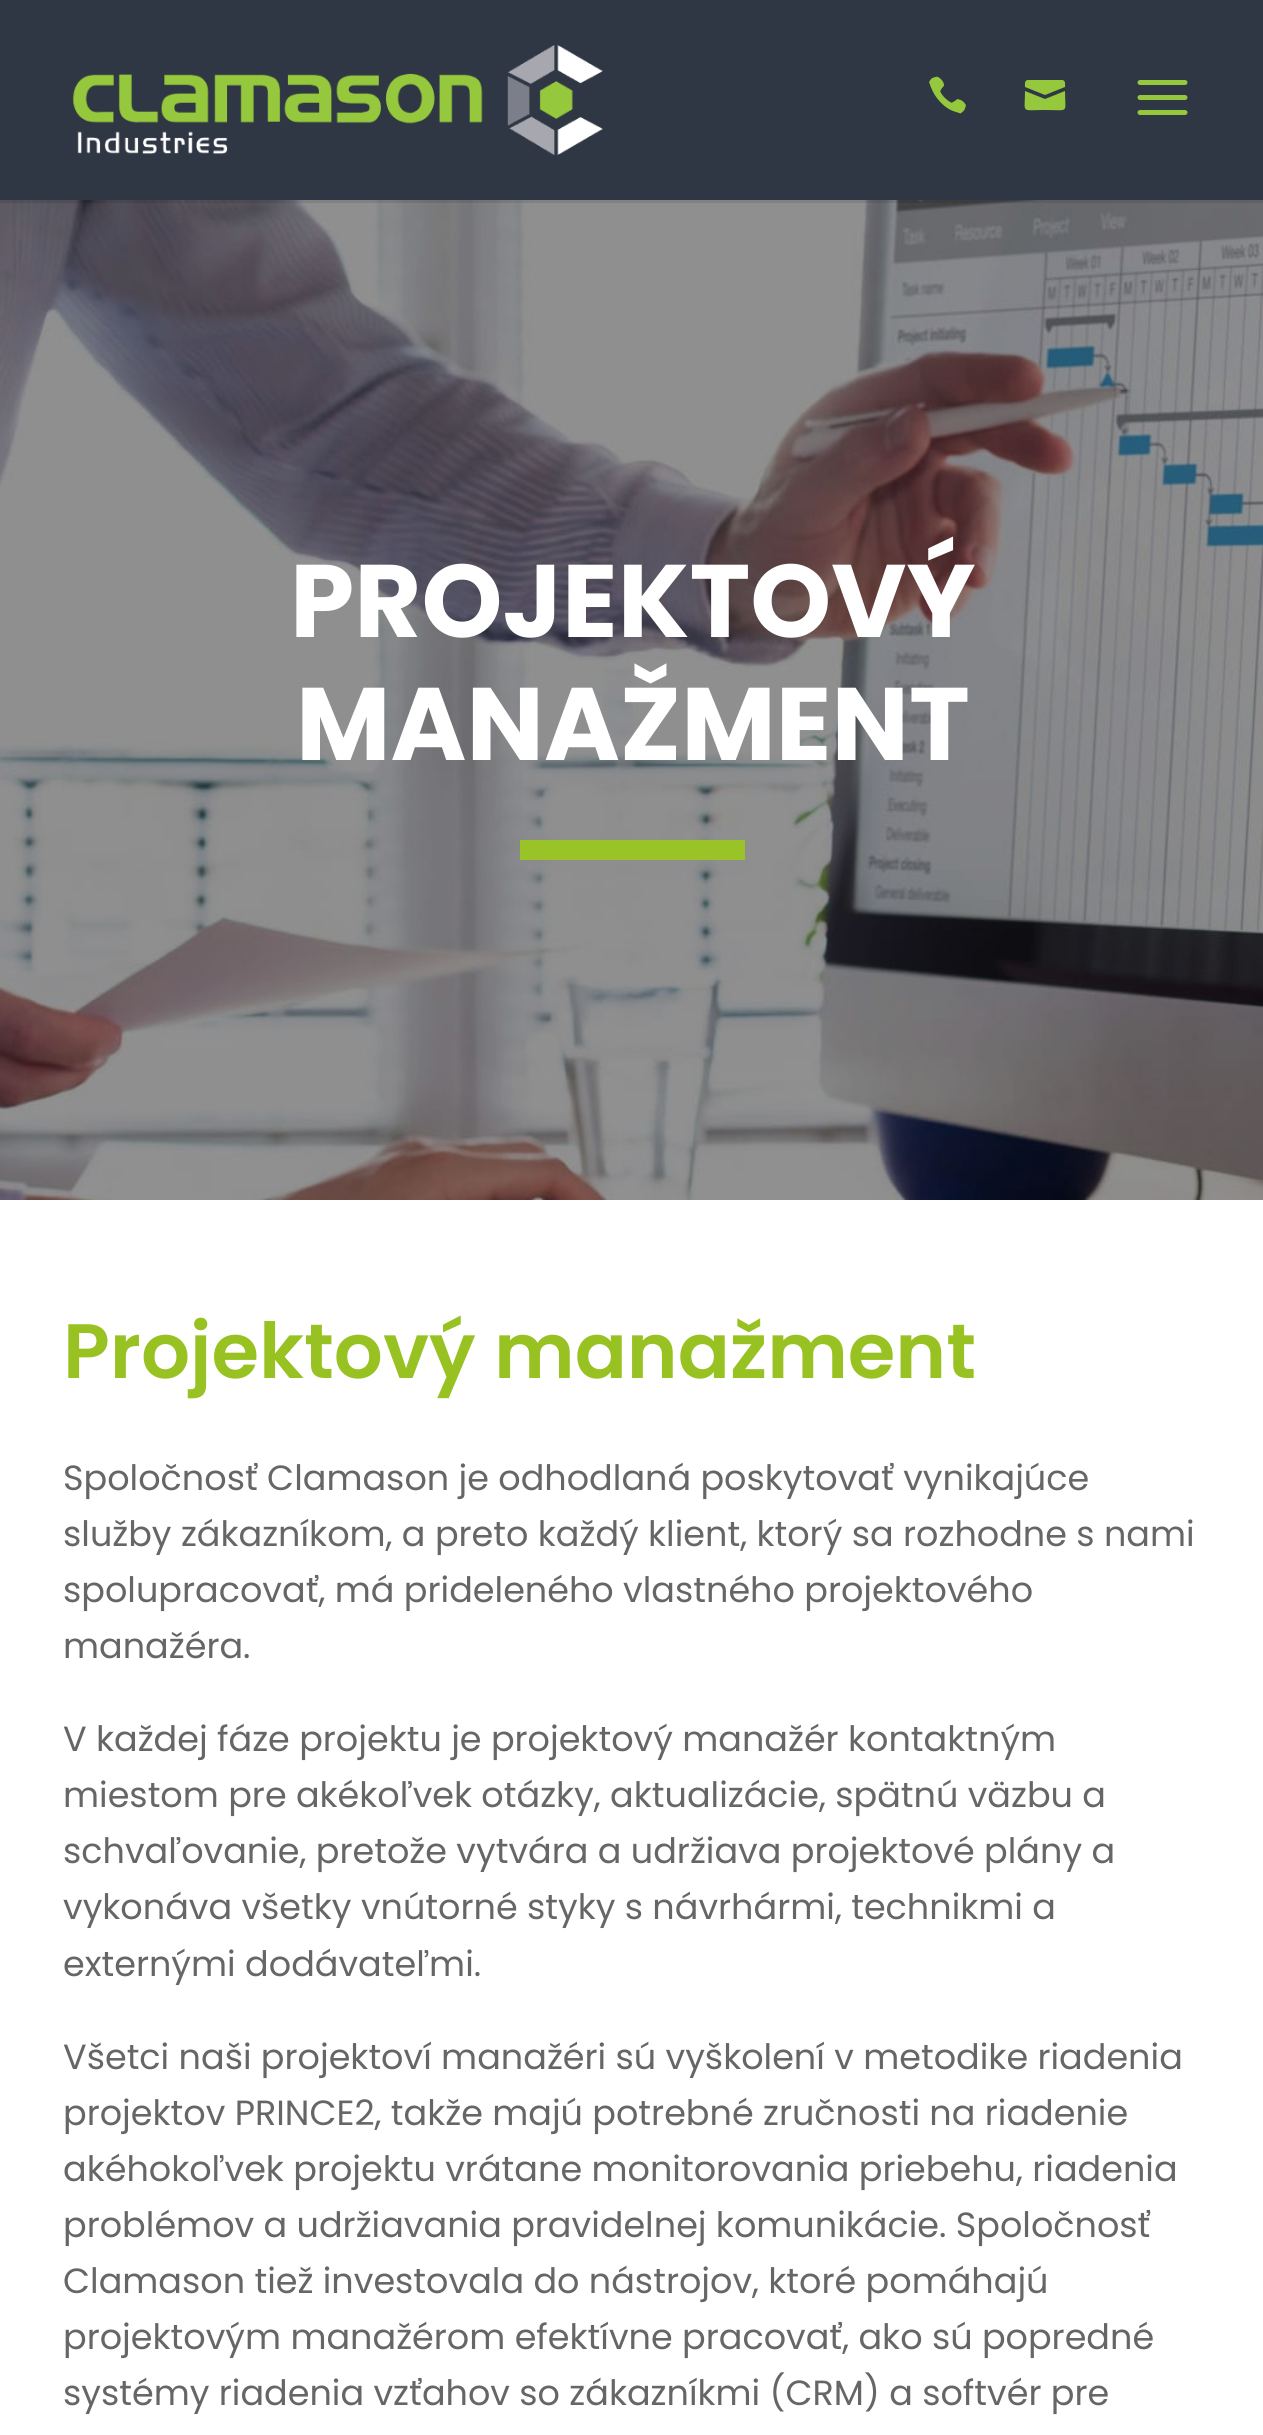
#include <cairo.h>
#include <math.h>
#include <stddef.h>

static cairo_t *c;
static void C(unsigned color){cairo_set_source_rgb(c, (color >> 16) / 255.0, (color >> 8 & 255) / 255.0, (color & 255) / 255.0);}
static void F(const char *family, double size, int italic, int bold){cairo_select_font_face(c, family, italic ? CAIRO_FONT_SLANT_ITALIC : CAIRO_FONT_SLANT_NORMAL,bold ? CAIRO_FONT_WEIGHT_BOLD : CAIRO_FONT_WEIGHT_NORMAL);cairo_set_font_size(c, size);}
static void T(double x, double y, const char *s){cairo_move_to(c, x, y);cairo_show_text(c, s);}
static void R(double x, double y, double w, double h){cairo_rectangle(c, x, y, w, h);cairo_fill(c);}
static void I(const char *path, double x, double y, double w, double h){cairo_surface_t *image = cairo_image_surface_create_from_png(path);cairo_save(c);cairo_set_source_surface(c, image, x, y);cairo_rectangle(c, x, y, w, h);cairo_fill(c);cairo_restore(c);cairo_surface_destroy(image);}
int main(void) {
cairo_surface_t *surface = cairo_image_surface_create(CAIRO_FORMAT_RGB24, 1263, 2435);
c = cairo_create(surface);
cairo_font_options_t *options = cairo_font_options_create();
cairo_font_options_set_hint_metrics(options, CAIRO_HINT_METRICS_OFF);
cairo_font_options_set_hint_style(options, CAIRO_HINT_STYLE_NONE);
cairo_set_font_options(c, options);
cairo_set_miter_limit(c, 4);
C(0xffffff);
cairo_paint(c);
I("4.png",0,200,1263,1000);
cairo_set_source_rgba(c,0,0,0,0.1);
R(0,200,1263,3);
C(0x2f3744);
R(0,0,1263,200);
I("1.png",72,45,531,110);
I("2.png",929,76,37,38);
C(0x95c83d);
cairo_new_path(c);
cairo_move_to(c,1062,80);
cairo_line_to(c,1028,80);
cairo_curve_to(c,1024,80,1025,85,1025,87);
cairo_line_to(c,1045,95);
cairo_line_to(c,1065,87);
cairo_curve_to(c,1065,85,1066,80,1062,80);
cairo_close_path(c);
cairo_move_to(c,1025,91);
cairo_curve_to(c,1025,114,1020,110,1045,110);
cairo_curve_to(c,1070,110,1065,114,1065,91);
cairo_line_to(c,1045,99);
cairo_close_path(c);
cairo_fill(c);
I("3.png",1137,80,51,35);
F("Poppins",103,0,1);
C(0xffffff);
T(290,637,"PROJEKTOVÝ");
T(296,760,"MANAŽMENT");
C(0x99c326);
R(520,840,225,20);
F("Poppins SemiBold",77,0,0);
C(0x97c221);
T(63,1378,"Projektový manažment");
F("Poppins",35,0,0);
C(0x666666);
T(63,1490,"Spoločnosť Clamason je odhodlaná poskytovať vynikajúce");
T(63,1546,"služby zákazníkom, a preto každý klient, ktorý sa rozhodne s nami");
T(63,1602,"spolupracovať, má prideleného vlastného projektového");
T(63,1658,"manažéra.");
T(63,1751,"V každej fáze projektu je projektový manažér kontaktným");
T(63,1807,"miestom pre akékoľvek otázky, aktualizácie, spätnú väzbu a");
T(63,1863,"schvaľovanie, pretože vytvára a udržiava projektové plány a");
T(63,1919,"vykonáva všetky vnútorné styky s návrhármi, technikmi a");
T(63,1976,"externými dodávateľmi.");
T(63,2069,"Všetci naši projektoví manažéri sú vyškolení v metodike riadenia");
T(63,2125,"projektov PRINCE2, takže majú potrebné zručnosti na riadenie");
T(63,2181,"akéhokoľvek projektu vrátane monitorovania priebehu, riadenia");
T(63,2237,"problémov a udržiavania pravidelnej komunikácie. Spoločnosť");
T(63,2293,"Clamason tiež investovala do nástrojov, ktoré pomáhajú");
T(63,2349,"projektovým manažérom efektívne pracovať, ako sú popredné");
T(63,2405,"systémy riadenia vzťahov so zákazníkmi (CRM) a softvér pre");
cairo_surface_write_to_png(surface, "o.png");
cairo_font_options_destroy(options);
cairo_destroy(c);
cairo_surface_destroy(surface);
return 0;
}
